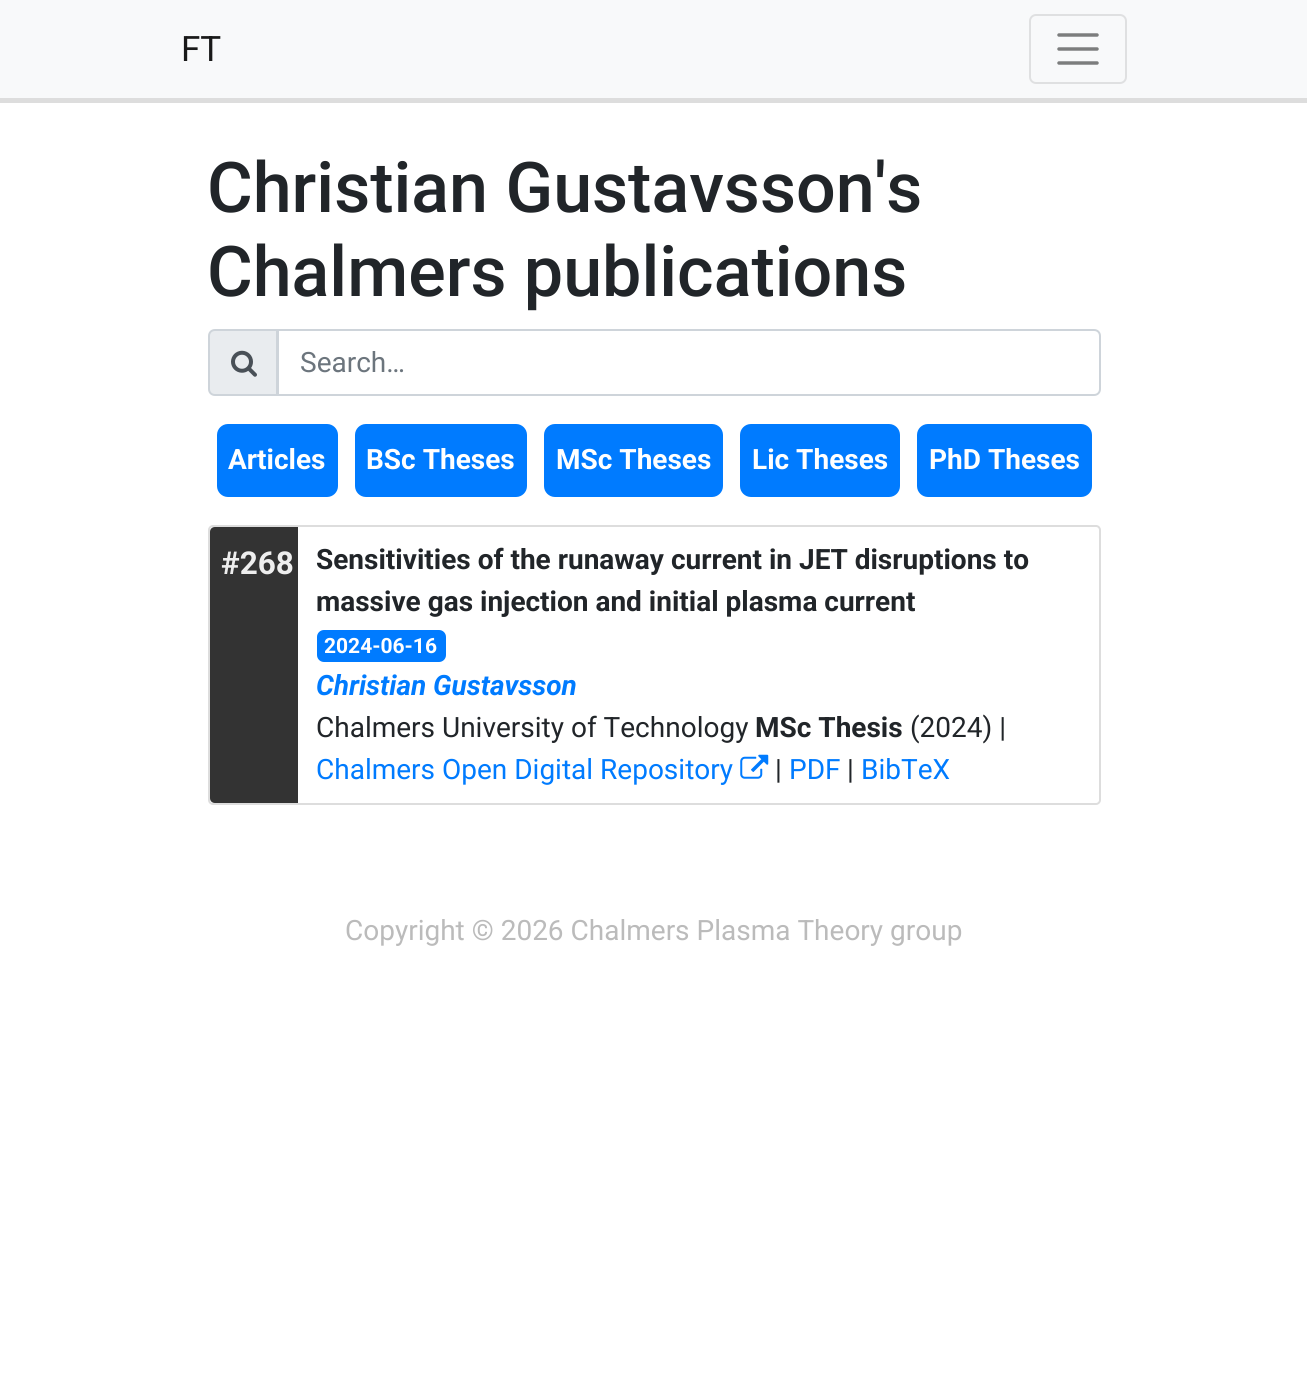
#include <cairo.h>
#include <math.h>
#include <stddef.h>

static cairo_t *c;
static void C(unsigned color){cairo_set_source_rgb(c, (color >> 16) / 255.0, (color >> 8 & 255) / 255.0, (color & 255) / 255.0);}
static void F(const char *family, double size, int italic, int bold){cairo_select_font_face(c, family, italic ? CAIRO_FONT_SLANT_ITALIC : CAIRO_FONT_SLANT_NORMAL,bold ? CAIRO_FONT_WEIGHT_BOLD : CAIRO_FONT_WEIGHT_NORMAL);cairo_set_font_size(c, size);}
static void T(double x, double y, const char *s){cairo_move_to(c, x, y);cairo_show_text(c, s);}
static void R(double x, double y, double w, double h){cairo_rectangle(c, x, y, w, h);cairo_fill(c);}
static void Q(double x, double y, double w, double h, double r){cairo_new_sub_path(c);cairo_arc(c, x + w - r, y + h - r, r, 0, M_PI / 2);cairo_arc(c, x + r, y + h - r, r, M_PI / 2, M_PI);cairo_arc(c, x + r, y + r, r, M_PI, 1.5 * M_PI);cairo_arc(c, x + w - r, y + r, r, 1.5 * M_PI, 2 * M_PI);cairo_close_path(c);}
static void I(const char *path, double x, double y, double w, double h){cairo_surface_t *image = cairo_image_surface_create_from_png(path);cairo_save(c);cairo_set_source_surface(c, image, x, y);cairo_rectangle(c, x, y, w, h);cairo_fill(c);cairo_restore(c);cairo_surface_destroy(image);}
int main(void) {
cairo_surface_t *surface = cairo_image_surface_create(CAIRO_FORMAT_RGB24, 1307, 1384);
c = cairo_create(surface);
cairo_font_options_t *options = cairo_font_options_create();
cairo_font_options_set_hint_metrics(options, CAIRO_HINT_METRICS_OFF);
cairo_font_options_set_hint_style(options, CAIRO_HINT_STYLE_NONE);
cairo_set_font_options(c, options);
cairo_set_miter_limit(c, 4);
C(0xffffff);
cairo_paint(c);
C(0xf8f9fa);
R(0,0,1307,98);
C(0xdddddd);
R(0,98,1307,5);
F("Roboto",35,0,0);
C(0x191919);
T(181,61,"FT");
Q(1030,15,96,68,6);
C(0xdfe0e1);
cairo_stroke(c);
cairo_new_path(c);
cairo_move_to(c,1059,35);
cairo_line_to(c,1097,35);
cairo_move_to(c,1059,49);
cairo_line_to(c,1097,49);
cairo_move_to(c,1059,63);
cairo_line_to(c,1097,63);
C(0x7c7d7d);
cairo_set_line_width(c,3.5);
cairo_set_line_cap(c,CAIRO_LINE_CAP_ROUND);
cairo_stroke(c);
F("Roboto Medium",70,0,0);
C(0x212529);
T(207,212,"Christian Gustavsson's");
T(207,296,"Chalmers publications");
C(0xe9ecef);
cairo_new_path(c);
cairo_move_to(c,215,330);
cairo_line_to(c,277,330);
cairo_line_to(c,277,395);
cairo_line_to(c,215,395);
cairo_curve_to(c,211.5,395,209,392.5,209,389);
cairo_line_to(c,209,336);
cairo_curve_to(c,209,332.5,211.5,330,215,330);
cairo_close_path(c);
cairo_fill_preserve(c);
C(0xced4da);
cairo_set_line_width(c,2);
cairo_set_line_cap(c,CAIRO_LINE_CAP_BUTT);
cairo_stroke(c);
I("1.png",231,350,26,27);
cairo_new_path(c);
cairo_move_to(c,278,330);
cairo_line_to(c,1094,330);
cairo_curve_to(c,1097.5,330,1100,332.5,1100,336);
cairo_line_to(c,1100,389);
cairo_curve_to(c,1100,392.5,1097.5,395,1094,395);
cairo_line_to(c,278,395);
cairo_close_path(c);
cairo_stroke(c);
F("Roboto",28,0,0);
C(0x6c757d);
T(300,372,"Search…");
C(0x007bff);
Q(218,425,119,71,10);
cairo_fill_preserve(c);
cairo_stroke(c);
F("Roboto",28,0,1);
C(0xffffff);
T(228,469,"Articles");
C(0x007bff);
Q(356,425,170,71,10);
cairo_fill_preserve(c);
cairo_stroke(c);
C(0xffffff);
T(366,469,"BSc Theses");
C(0x007bff);
Q(545,425,177,71,10);
cairo_fill_preserve(c);
cairo_stroke(c);
C(0xffffff);
T(556,469,"MSc Theses");
C(0x007bff);
Q(741,425,158,71,10);
cairo_fill_preserve(c);
cairo_stroke(c);
C(0xffffff);
T(752,469,"Lic Theses");
C(0x007bff);
Q(918,425,173,71,10);
cairo_fill_preserve(c);
cairo_stroke(c);
C(0xffffff);
T(929,469,"PhD Theses");
Q(209,526,891,278,4);
C(0xdddddd);
cairo_stroke(c);
C(0x333333);
cairo_new_path(c);
cairo_move_to(c,215,527);
cairo_line_to(c,298,527);
cairo_line_to(c,298,803);
cairo_line_to(c,215,803);
cairo_curve_to(c,212,803,210,801,210,798);
cairo_line_to(c,210,532);
cairo_curve_to(c,210,529,212,527,215,527);
cairo_close_path(c);
cairo_fill(c);
F("Roboto",31.5,0,1);
C(0xeeeeee);
T(221,574,"#268");
F("Roboto",28,0,1);
C(0x212529);
T(316,569,"Sensitivities of the runaway current in JET disruptions to");
T(316,611,"massive gas injection and initial plasma current");
C(0x007bff);
Q(317,630,129,32,7);
cairo_fill(c);
F("Roboto",21,0,1);
C(0xffffff);
T(324,653,"2024-06-16");
F("Roboto",28,1,1);
C(0x007bff);
T(316,695,"Christian Gustavsson");
F("Roboto",28,0,0);
C(0x212529);
T(316,737,"Chalmers University of Technology");
F("Roboto",28,0,1);
T(755,737,"MSc Thesis");
F("Roboto",28,0,0);
T(910,737,"(2024) |");
C(0x007bff);
T(316,779,"Chalmers Open Digital Repository");
I("2.png",740,754,29,25);
C(0x212529);
T(775,779,"|");
C(0x007bff);
T(789,779,"PDF");
C(0x212529);
T(847,779,"|");
C(0x007bff);
T(861,779,"BibTeX");
C(0xbbbbbb);
T(345,940,"Copyright © 2026 Chalmers Plasma Theory group");
cairo_surface_write_to_png(surface, "o.png");
cairo_font_options_destroy(options);
cairo_destroy(c);
cairo_surface_destroy(surface);
return 0;
}
